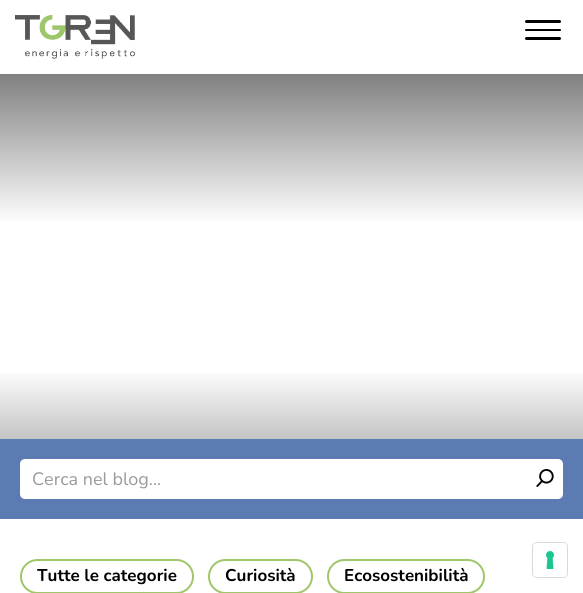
#include <cairo.h>
#include <math.h>
#include <stddef.h>

static cairo_t *c;
static void C(unsigned color){cairo_set_source_rgb(c, (color >> 16) / 255.0, (color >> 8 & 255) / 255.0, (color & 255) / 255.0);}
static void F(const char *family, double size, int italic, int bold){cairo_select_font_face(c, family, italic ? CAIRO_FONT_SLANT_ITALIC : CAIRO_FONT_SLANT_NORMAL,bold ? CAIRO_FONT_WEIGHT_BOLD : CAIRO_FONT_WEIGHT_NORMAL);cairo_set_font_size(c, size);}
static void T(double x, double y, const char *s){cairo_move_to(c, x, y);cairo_show_text(c, s);}
static void R(double x, double y, double w, double h){cairo_rectangle(c, x, y, w, h);cairo_fill(c);}
static void Q(double x, double y, double w, double h, double r){cairo_new_sub_path(c);cairo_arc(c, x + w - r, y + h - r, r, 0, M_PI / 2);cairo_arc(c, x + r, y + h - r, r, M_PI / 2, M_PI);cairo_arc(c, x + r, y + r, r, M_PI, 1.5 * M_PI);cairo_arc(c, x + w - r, y + r, r, 1.5 * M_PI, 2 * M_PI);cairo_close_path(c);}
static void I(const char *path, double x, double y, double w, double h){cairo_surface_t *image = cairo_image_surface_create_from_png(path);cairo_save(c);cairo_set_source_surface(c, image, x, y);cairo_rectangle(c, x, y, w, h);cairo_fill(c);cairo_restore(c);cairo_surface_destroy(image);}
int main(void) {
cairo_surface_t *surface = cairo_image_surface_create(CAIRO_FORMAT_RGB24, 583, 593);
c = cairo_create(surface);
cairo_font_options_t *options = cairo_font_options_create();
cairo_font_options_set_hint_metrics(options, CAIRO_HINT_METRICS_OFF);
cairo_font_options_set_hint_style(options, CAIRO_HINT_STYLE_NONE);
cairo_set_font_options(c, options);
cairo_set_miter_limit(c, 4);
cairo_pattern_t *gradient;
C(0xffffff);
cairo_paint(c);
I("1.png",15,15,120,44);
C(0x000000);
Q(525,20,36,3,1.5);
cairo_fill(c);
Q(525,29,36,2,1);
cairo_fill(c);
Q(525,37,36,3,1.5);
cairo_fill(c);
gradient = cairo_pattern_create_linear(292,74,292,224);
cairo_pattern_add_color_stop_rgba(gradient,0,0.502,0.502,0.502,1);
cairo_pattern_add_color_stop_rgba(gradient,1,1,1,1,1);
cairo_set_source(c,gradient);
cairo_pattern_destroy(gradient);
R(0,74,583,147);
gradient = cairo_pattern_create_linear(292,519,292,369);
cairo_pattern_add_color_stop_rgba(gradient,0,0.502,0.502,0.502,1);
cairo_pattern_add_color_stop_rgba(gradient,1,1,1,1,1);
cairo_set_source(c,gradient);
cairo_pattern_destroy(gradient);
R(0,372,583,67);
C(0x5c7bb2);
R(0,439,583,80);
C(0xffffff);
Q(20,459,543,40,5);
cairo_fill(c);
F("Nunito",18,0,0);
C(0x999999);
T(32,485,"Cerca nel blog...");
I("2.png",536,469,18,18);
Q(21,560,172,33,16.5);
C(0x9fc66b);
cairo_stroke(c);
F("Nunito",17,0,1);
C(0x000000);
T(37,581,"Tutte le categorie");
Q(209,560,103,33,16.5);
C(0x9fc66b);
cairo_stroke(c);
C(0x000000);
T(225,581,"Curiosità");
Q(328,560,156,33,16.5);
C(0x9fc66b);
cairo_stroke(c);
C(0x000000);
T(344,581,"Ecosostenibilità");
Q(532.5,542.5,35,35,4.5);
C(0xd9d9d9);
cairo_set_line_width(c,1);
cairo_stroke(c);
C(0xffffff);
Q(533,543,34,34,4);
cairo_fill(c);
I("3.png",546,551,8,18);
cairo_surface_write_to_png(surface, "o.png");
cairo_font_options_destroy(options);
cairo_destroy(c);
cairo_surface_destroy(surface);
return 0;
}
